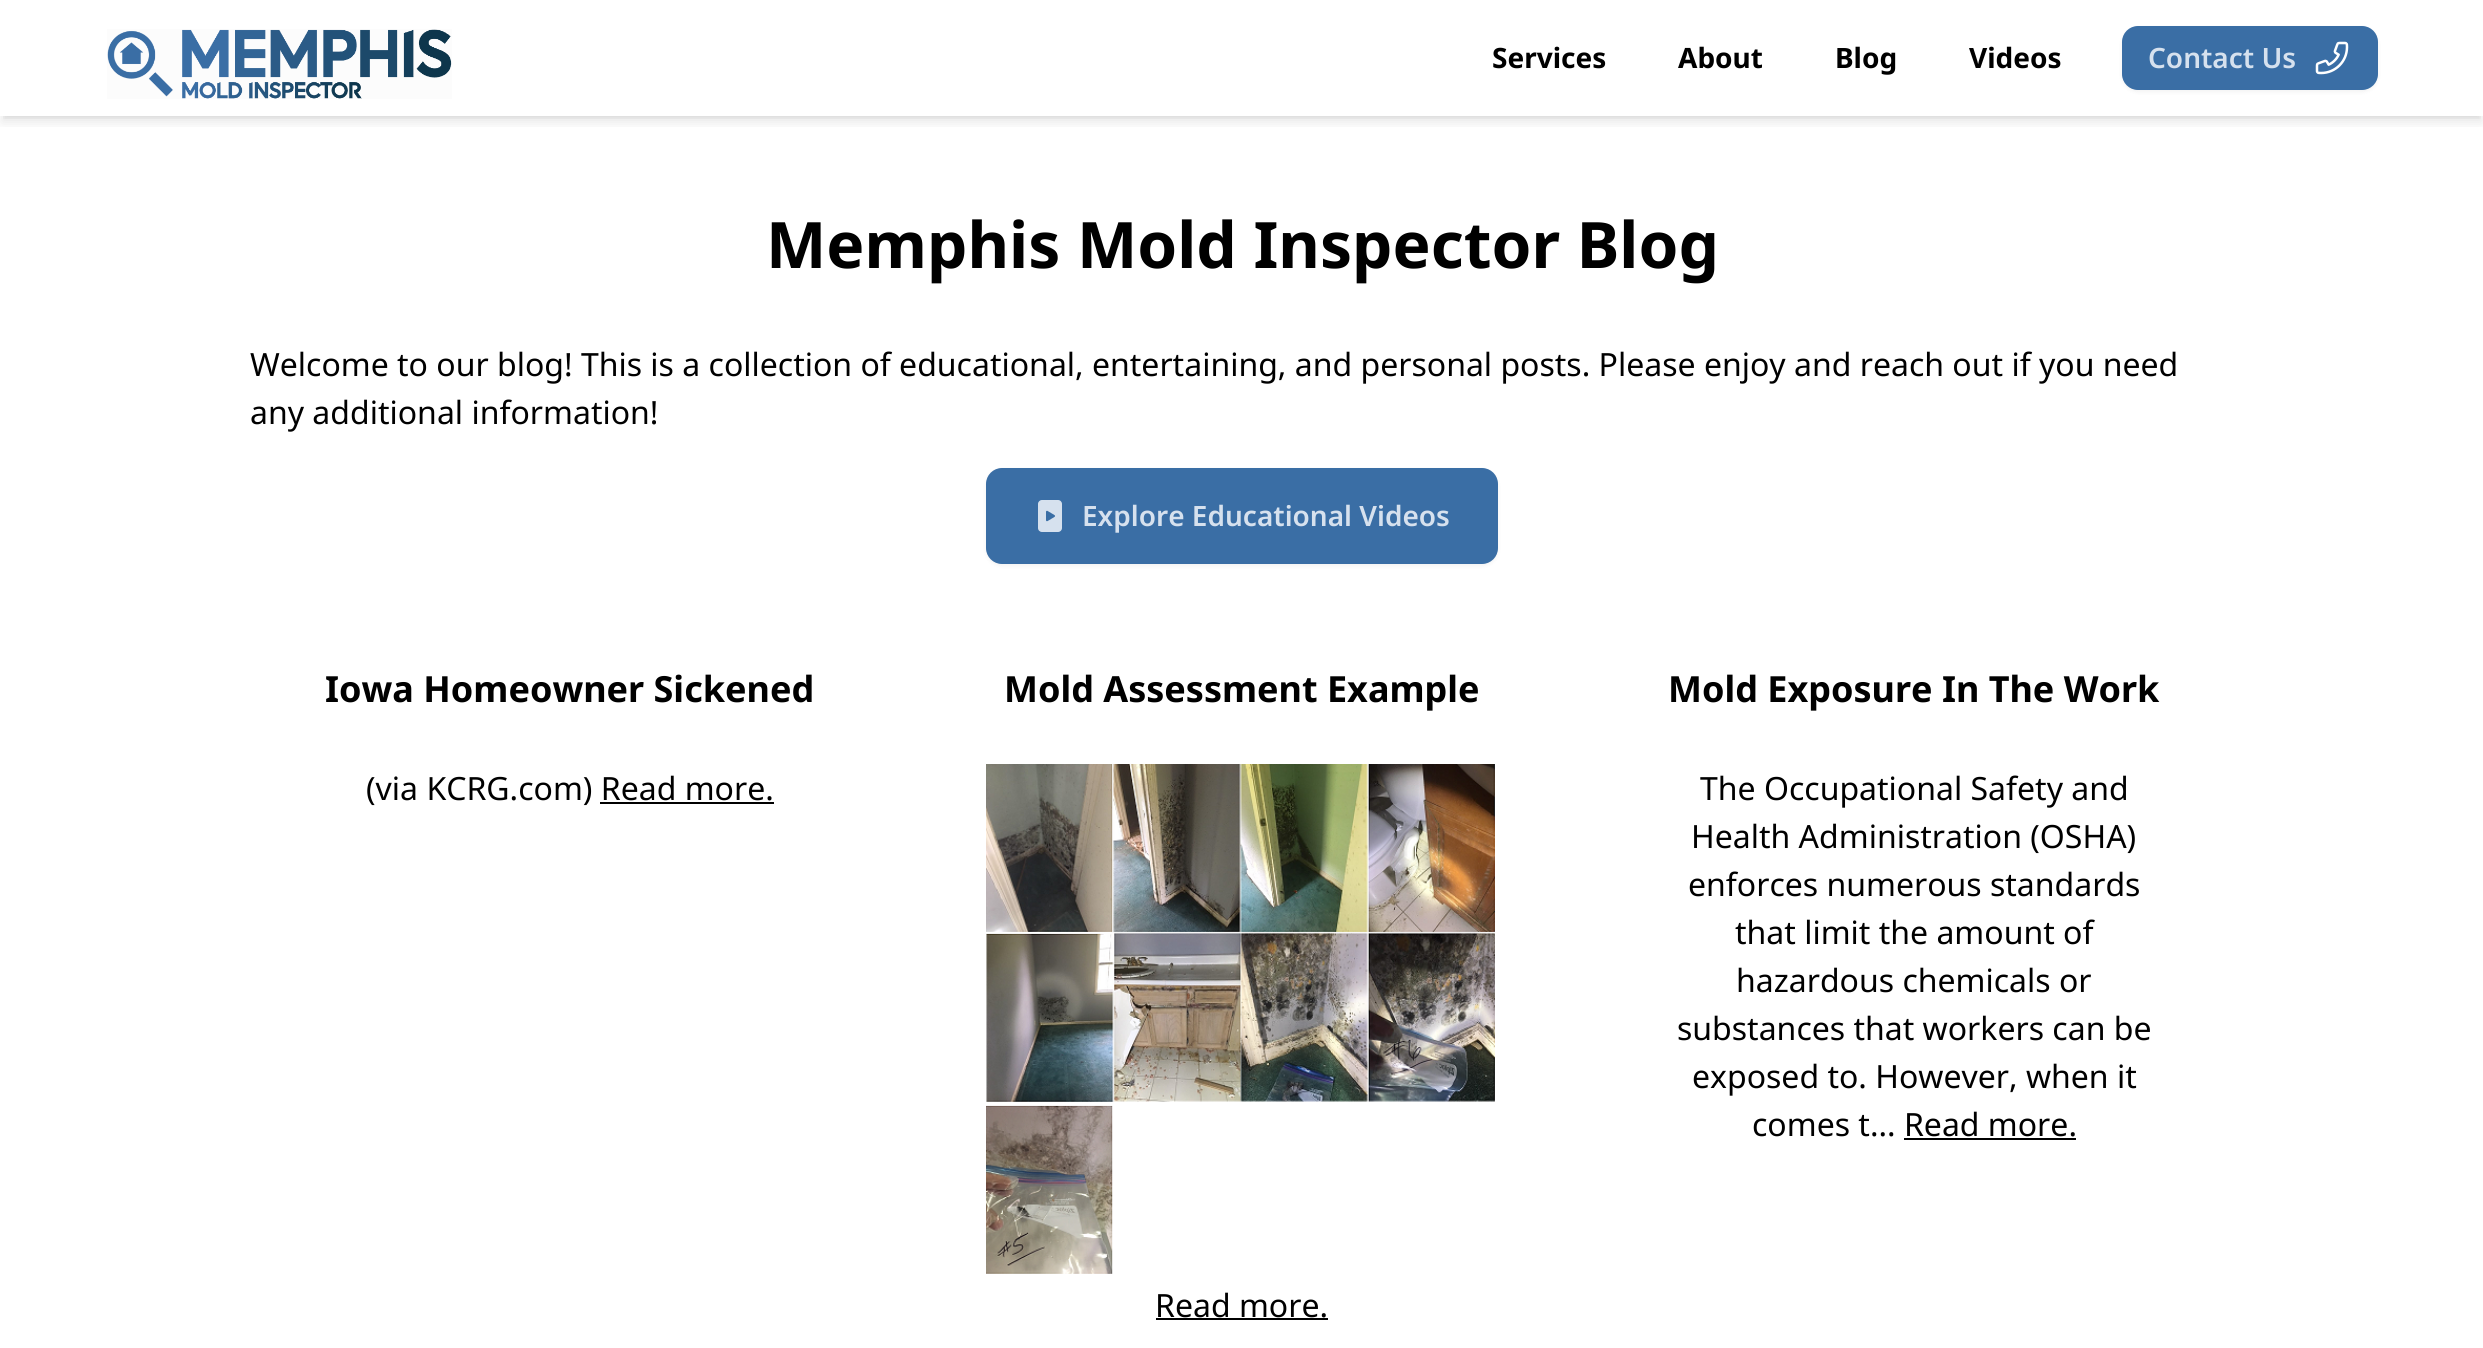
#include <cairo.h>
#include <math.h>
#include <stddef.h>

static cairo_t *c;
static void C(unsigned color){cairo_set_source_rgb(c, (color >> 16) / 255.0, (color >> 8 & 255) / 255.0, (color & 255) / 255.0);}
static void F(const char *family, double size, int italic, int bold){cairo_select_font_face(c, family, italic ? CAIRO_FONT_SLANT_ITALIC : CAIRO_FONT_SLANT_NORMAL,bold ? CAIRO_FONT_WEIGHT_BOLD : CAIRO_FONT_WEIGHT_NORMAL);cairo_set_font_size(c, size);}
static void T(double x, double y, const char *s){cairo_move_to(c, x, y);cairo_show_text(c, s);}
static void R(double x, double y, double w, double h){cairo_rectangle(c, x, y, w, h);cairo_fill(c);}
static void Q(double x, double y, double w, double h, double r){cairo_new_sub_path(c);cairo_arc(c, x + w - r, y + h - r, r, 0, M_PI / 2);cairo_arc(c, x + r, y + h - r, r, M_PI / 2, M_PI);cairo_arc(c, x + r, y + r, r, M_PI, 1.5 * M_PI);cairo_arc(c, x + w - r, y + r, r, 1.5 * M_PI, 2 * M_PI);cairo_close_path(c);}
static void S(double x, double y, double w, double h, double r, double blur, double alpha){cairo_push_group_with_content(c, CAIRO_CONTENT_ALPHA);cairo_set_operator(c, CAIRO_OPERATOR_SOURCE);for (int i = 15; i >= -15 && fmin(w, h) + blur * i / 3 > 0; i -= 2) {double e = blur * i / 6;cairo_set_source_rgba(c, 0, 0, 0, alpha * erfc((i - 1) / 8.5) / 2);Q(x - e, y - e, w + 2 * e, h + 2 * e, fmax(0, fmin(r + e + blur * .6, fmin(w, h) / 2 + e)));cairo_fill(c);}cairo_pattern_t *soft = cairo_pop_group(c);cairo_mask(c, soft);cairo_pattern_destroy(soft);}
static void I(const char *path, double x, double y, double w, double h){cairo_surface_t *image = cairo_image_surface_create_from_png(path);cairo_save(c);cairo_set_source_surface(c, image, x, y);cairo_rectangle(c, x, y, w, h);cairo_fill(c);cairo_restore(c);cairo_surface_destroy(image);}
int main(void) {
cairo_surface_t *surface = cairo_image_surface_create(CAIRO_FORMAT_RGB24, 2483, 1348);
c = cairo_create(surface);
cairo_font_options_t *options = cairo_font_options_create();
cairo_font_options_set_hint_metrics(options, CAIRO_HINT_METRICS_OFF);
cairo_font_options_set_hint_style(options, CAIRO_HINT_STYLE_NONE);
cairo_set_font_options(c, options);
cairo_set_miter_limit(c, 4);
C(0xffffff);
cairo_paint(c);
cairo_save(c);
cairo_rectangle(c,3,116,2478,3);
cairo_clip(c);
C(0x000000);
S(4,8,2476,108,0,4,.1);
cairo_restore(c);
cairo_save(c);
cairo_rectangle(c,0,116,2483,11);
cairo_clip(c);
C(0x000000);
S(2,10,2480,112,0,6,.1);
cairo_restore(c);
I("1.png",107,29,345,70);
F("Noto Sans",28,0,1);
C(0x000000);
T(1492,68,"Services");
T(1678,68,"About");
T(1835,68,"Blog");
T(1969,68,"Videos");
C(0x000000);
S(2122,28,256,64,16,2,.05);
C(0x3a6ea5);
Q(2123,27,254,62,15);
cairo_fill_preserve(c);
cairo_stroke(c);
F("Noto Sans SemiBold",28,0,0);
C(0xd6e1ee);
T(2148,68,"Contact Us");
I("2.png",2315,41,34,34);
F("Noto Sans",64,0,1);
C(0x000000);
T(766,268,"Memphis Mold Inspector Blog");
F("Noto Sans",32,0,0);
T(250,376,"Welcome to our blog! This is a collection of educational, entertaining, and personal posts. Please enjoy and reach out if you need");
T(250,424,"any additional information!");
C(0x000000);
S(986,470,512,96,16,2,.05);
C(0x3a6ea5);
Q(987,469,510,94,15);
cairo_fill_preserve(c);
cairo_stroke(c);
I("3.png",1038,500,24,32);
F("Noto Sans SemiBold",28,0,0);
C(0xd6e1ee);
T(1082,526,"Explore Educational Videos");
F("Noto Sans",36,0,1);
C(0x000000);
T(325,702,"Iowa Homeowner Sickened");
F("Noto Sans",32,0,0);
T(366,800,"(via KCRG.com) Read more.");
R(600,802,174,2);
F("Noto Sans",36,0,1);
T(1004,702,"Mold Assessment Example");
I("4.png",986,764,509,510);
F("Noto Sans",32,0,0);
T(1155,1317,"Read more.");
R(1156,1318,172,2);
F("Noto Sans",36,0,1);
T(1668,702,"Mold Exposure In The Work");
F("Noto Sans",32,0,0);
T(1700,800,"The Occupational Safety and");
T(1691,848,"Health Administration (OSHA)");
T(1688,896,"enforces numerous standards");
T(1735,944,"that limit the amount of");
T(1736,992,"hazardous chemicals or");
T(1677,1040,"substances that workers can be");
T(1692,1088,"exposed to. However, when it");
T(1752,1136,"comes t... Read more.");
R(1904,1138,172,2);
cairo_surface_write_to_png(surface, "o.png");
cairo_font_options_destroy(options);
cairo_destroy(c);
cairo_surface_destroy(surface);
return 0;
}
